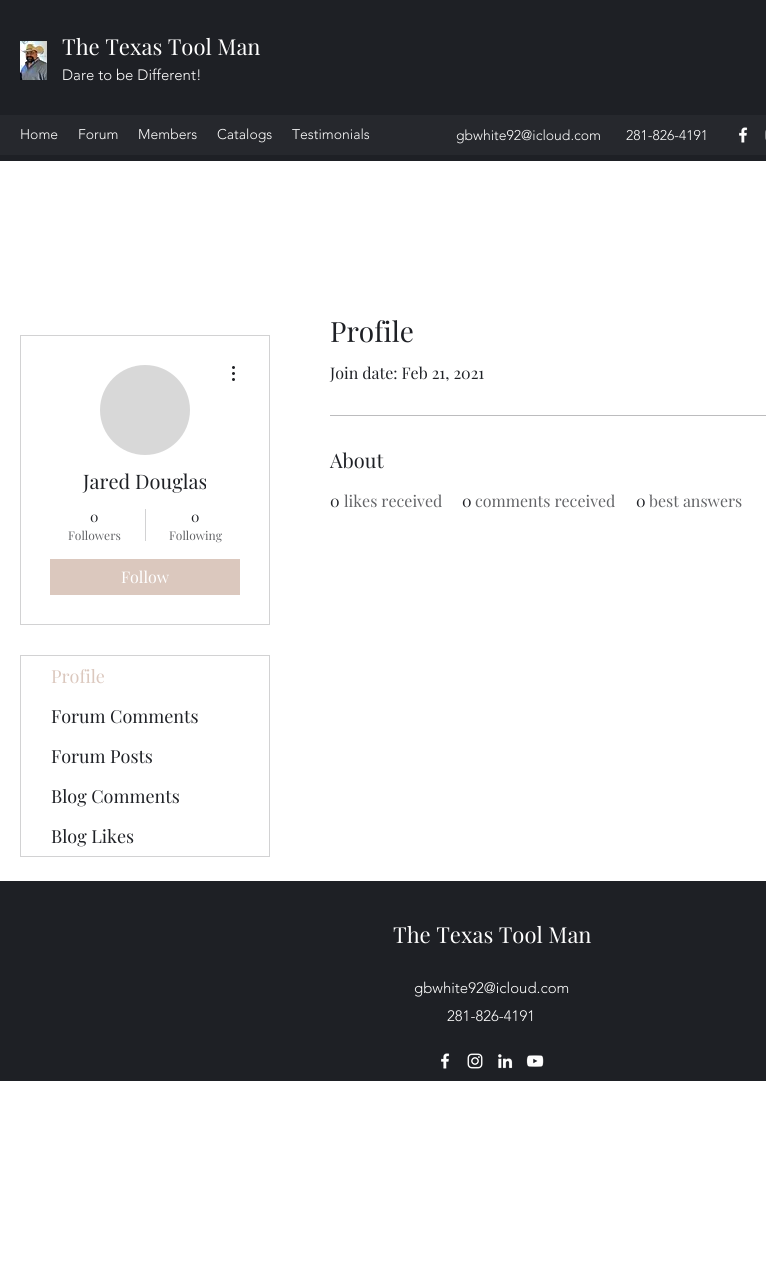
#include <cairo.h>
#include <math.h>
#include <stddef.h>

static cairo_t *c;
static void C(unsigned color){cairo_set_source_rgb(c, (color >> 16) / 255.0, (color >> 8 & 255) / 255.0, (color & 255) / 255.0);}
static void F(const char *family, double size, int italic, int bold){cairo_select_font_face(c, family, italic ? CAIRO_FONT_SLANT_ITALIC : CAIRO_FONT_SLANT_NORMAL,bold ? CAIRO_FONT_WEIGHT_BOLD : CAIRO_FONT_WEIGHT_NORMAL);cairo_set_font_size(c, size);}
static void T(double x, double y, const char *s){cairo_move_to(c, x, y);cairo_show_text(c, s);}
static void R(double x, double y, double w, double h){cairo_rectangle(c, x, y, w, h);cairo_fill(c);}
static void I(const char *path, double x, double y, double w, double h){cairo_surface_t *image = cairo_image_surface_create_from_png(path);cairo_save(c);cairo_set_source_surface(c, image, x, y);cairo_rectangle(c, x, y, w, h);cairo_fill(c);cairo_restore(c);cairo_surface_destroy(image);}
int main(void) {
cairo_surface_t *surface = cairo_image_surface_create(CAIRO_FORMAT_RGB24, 766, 1274);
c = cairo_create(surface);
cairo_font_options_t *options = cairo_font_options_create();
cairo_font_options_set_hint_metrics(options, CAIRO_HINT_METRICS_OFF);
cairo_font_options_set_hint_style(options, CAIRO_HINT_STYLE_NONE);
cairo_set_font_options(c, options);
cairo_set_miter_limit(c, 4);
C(0xffffff);
cairo_paint(c);
C(0x1e2025);
R(0,0,766,161);
I("1.png",20,41,27,39);
F("Playfair Display",22,0,0);
C(0xffffff);
T(62,55,"The Texas Tool Man");
F("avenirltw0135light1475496 Light",15,0,0);
T(62,80,"Dare to be Different!");
C(0x26282d);
R(0,115,766,40);
F("avenirltw0135light1475496 Light",14,0,0);
C(0xffffff);
T(20,139,"Home");
T(78,139,"Forum");
T(138,139,"Members");
T(217,139,"Catalogs");
T(292,139,"Testimonials");
T(456,140,"gbwhite92@icloud.com");
T(626,140,"281-826-4191");
I("2.png",739,127,9,16);
I("3.png",765,130,1,10);
F("Playfair Display",28,0,0);
C(0x1e2025);
T(330,342,"Profile");
F("Playfair Display",16,0,0);
T(330,379,"Join date: Feb 21, 2021");
C(0xbcbcbe);
R(330,415,436,1);
F("Playfair Display",20,0,0);
C(0x1e2025);
T(330,468,"About");
F("Playfair Display",16,0,0);
T(330,507,"0");
C(0x626366);
T(344,507,"likes received");
C(0x1e2025);
T(462,507,"0");
C(0x626366);
T(475,507,"comments received");
C(0x1e2025);
T(636,507,"0");
C(0x626366);
T(649,507,"best answers");
cairo_rectangle(c,20.5,335.5,249,289);
C(0xd2d2d3);
cairo_set_line_width(c,1);
cairo_stroke(c);
C(0xd8d8d8);
cairo_arc(c,145,410,45,0,2 * M_PI);
cairo_fill(c);
I("4.png",232,366,3,15);
F("Playfair Display",20,0,0);
C(0x1e2025);
T(83,489,"Jared Douglas");
F("Playfair Display",14,0,0);
T(90,522,"0");
F("Playfair Display",12,0,0);
C(0x626366);
T(68,540,"Followers");
C(0xd2d2d3);
R(145,509,1,32);
F("Playfair Display",14,0,0);
C(0x1e2025);
T(191,522,"0");
F("Playfair Display",12,0,0);
C(0x626366);
T(169,540,"Following");
C(0xdbc8be);
R(50,559,190,36);
F("Playfair Display",16,0,0);
C(0xffffff);
T(121,583,"Follow");
cairo_rectangle(c,20.5,655.5,249,201);
C(0xd2d2d3);
cairo_stroke(c);
F("Playfair Display",18,0,0);
C(0xdbc8be);
T(51,683,"Profile");
C(0x1e2025);
T(51,723,"Forum Comments");
T(51,763,"Forum Posts");
T(51,803,"Blog Comments");
T(51,843,"Blog Likes");
R(0,881,766,200);
F("Playfair Display",22,0,0);
C(0xffffff);
T(393,943,"The Texas Tool Man");
F("avenirltw0135light1475496 Light",15,0,0);
T(414,993,"gbwhite92@icloud.com");
T(447,1021,"281-826-4191");
I("5.png",441,1053,9,16);
I("6.png",467,1053,16,16);
I("7.png",498,1054,15,15);
I("8.png",526,1055,18,12);
cairo_surface_write_to_png(surface, "o.png");
cairo_font_options_destroy(options);
cairo_destroy(c);
cairo_surface_destroy(surface);
return 0;
}
